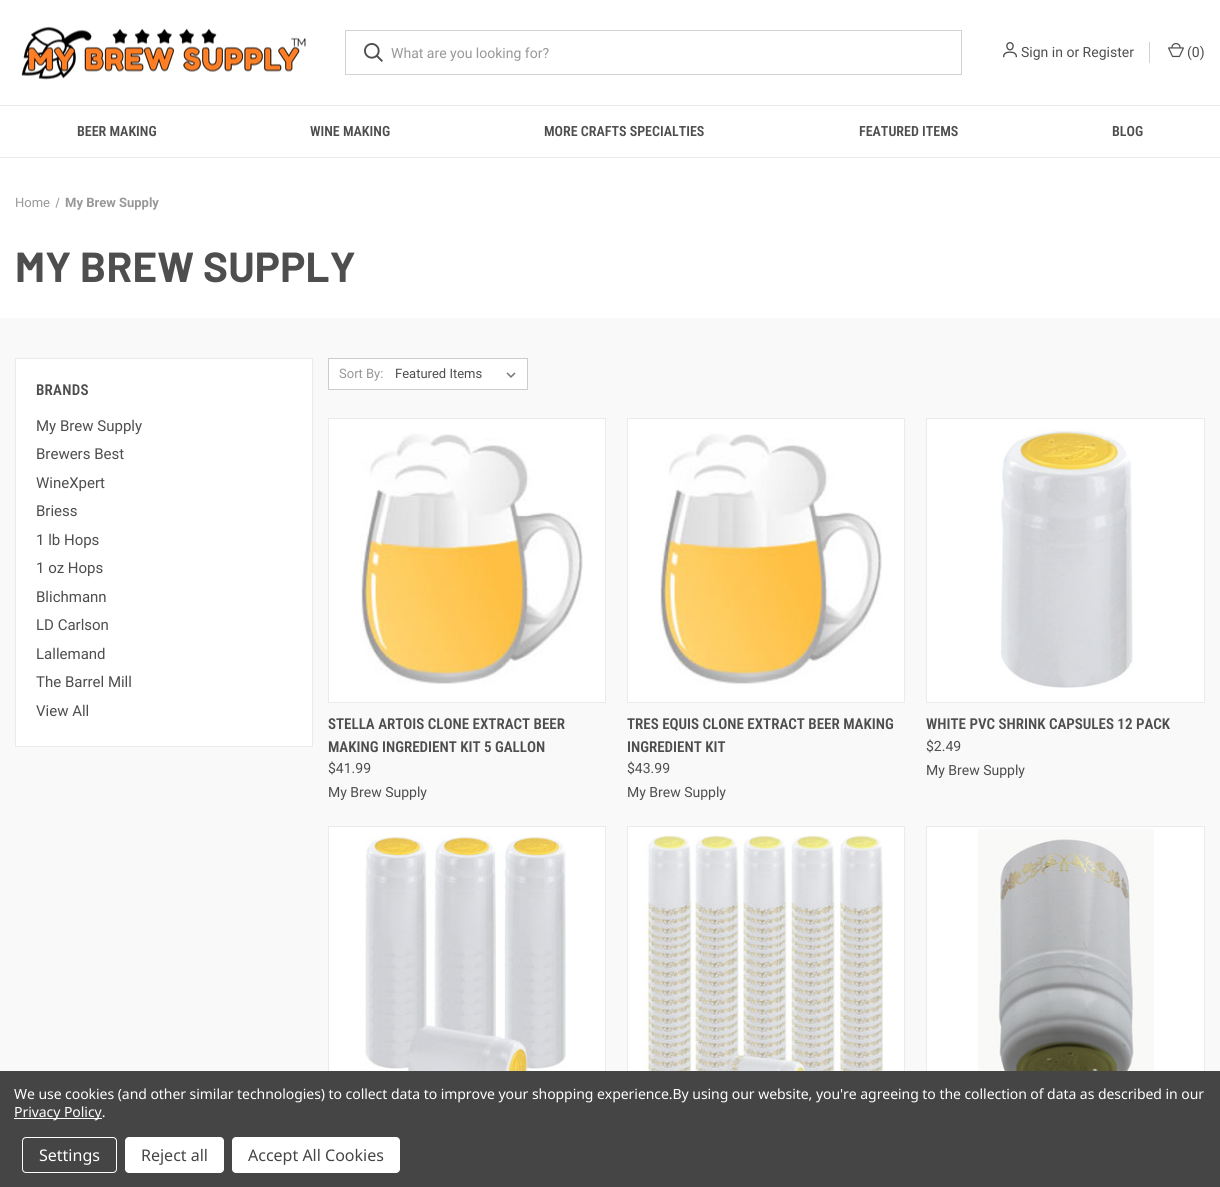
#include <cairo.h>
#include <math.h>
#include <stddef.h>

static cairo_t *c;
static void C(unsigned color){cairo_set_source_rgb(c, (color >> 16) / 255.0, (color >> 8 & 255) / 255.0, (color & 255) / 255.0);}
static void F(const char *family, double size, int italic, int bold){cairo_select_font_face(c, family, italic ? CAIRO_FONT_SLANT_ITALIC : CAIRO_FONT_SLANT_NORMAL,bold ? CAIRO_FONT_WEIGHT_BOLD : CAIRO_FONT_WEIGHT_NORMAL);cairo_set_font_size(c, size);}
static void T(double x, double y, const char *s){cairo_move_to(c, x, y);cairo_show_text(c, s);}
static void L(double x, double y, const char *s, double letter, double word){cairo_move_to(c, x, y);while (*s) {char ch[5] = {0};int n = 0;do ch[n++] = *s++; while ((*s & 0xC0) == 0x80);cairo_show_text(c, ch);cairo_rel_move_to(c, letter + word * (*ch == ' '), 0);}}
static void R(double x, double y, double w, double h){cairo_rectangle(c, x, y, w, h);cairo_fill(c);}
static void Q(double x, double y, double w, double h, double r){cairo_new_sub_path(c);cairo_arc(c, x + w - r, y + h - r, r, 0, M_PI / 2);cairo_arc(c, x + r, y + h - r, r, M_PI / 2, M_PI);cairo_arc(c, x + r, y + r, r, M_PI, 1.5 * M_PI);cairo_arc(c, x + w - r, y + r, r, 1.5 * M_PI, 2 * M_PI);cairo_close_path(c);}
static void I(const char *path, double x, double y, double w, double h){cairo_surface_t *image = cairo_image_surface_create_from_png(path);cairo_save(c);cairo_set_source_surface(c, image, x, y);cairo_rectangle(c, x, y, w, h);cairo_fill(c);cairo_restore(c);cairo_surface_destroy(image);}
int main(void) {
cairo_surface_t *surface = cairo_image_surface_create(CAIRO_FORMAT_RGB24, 1220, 1187);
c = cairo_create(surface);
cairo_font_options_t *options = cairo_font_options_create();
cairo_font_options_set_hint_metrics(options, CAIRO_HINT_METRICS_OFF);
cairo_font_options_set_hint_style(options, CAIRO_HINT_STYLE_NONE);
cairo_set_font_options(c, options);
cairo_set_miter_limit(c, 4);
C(0xffffff);
cairo_paint(c);
I("1.png",21,26,285,54);
cairo_rectangle(c,345.5,30.5,616,44);
C(0xd2d2d2);
cairo_set_line_width(c,1);
cairo_stroke(c);
I("2.png",364,43,19,19);
F("Roboto",14,0,0);
C(0x989898);
T(391,58,"What are you looking for?");
I("3.png",1003,42,14,16);
C(0x4e4e4e);
T(1021,57,"Sign in or Register");
C(0xd2d2d2);
R(1149,42,1,21);
I("4.png",1168,43,16,15);
C(0x4e4e4e);
T(1187,57,"(0)");
C(0xebebeb);
R(0,105,1220,1);
R(0,157,1220,1);
F("Roboto Condensed SemiBold",14,0,0);
C(0x4e4e4e);
T(77,136,"BEER MAKING");
T(310,136,"WINE MAKING");
T(544,136,"MORE CRAFTS SPECIALTIES");
T(859,136,"FEATURED ITEMS");
T(1112,136,"BLOG");
F("Roboto",13,0,0);
C(0x989898);
T(15,207,"Home");
C(0xa3a3a3);
cairo_new_path(c);
cairo_move_to(c,58.5,197.5);
cairo_line_to(c,59.5,198);
cairo_line_to(c,56.5,208);
cairo_line_to(c,55.5,207.5);
cairo_close_path(c);
cairo_fill(c);
F("Roboto",13,0,1);
C(0x989898);
T(65,207,"My Brew Supply");
F("Barlow",42,0,1);
C(0x4e4e4e);
L(15,282,"MY BREW SUPPLY",.25,0);
C(0xf9f9f9);
R(0,318,1220,753);
C(0xffffff);
cairo_rectangle(c,15.5,358.5,297,388);
cairo_fill_preserve(c);
C(0xebebeb);
cairo_stroke(c);
F("Roboto Condensed SemiBold",15,0,0);
C(0x4e4e4e);
L(36,395,"BRANDS",.25,0);
F("Roboto",15,0,0);
T(36,431,"My Brew Supply");
T(36,459,"Brewers Best");
T(36,488,"WineXpert");
T(36,516,"Briess");
T(36,545,"1 lb Hops");
T(36,573,"1 oz Hops");
T(36,602,"Blichmann");
T(36,630,"LD Carlson");
T(36,659,"Lallemand");
T(36,687,"The Barrel Mill");
T(36,716,"View All");
C(0xffffff);
cairo_rectangle(c,328.5,358.5,199,31);
cairo_fill_preserve(c);
C(0xcccccc);
cairo_stroke(c);
F("Roboto",13,0,0);
C(0x989898);
T(339,378,"Sort By:");
I("5.png",506,372,10,6);
C(0x4e4e4e);
T(395,378,"Featured Items");
C(0xffffff);
cairo_rectangle(c,328.5,418.5,277,284);
cairo_fill_preserve(c);
C(0xebebeb);
cairo_stroke(c);
I("6.png",360,433,223,251);
F("Roboto Condensed SemiBold",15,0,0);
C(0x4e4e4e);
T(328,729,"STELLA ARTOIS CLONE EXTRACT BEER");
T(328,752,"MAKING INGREDIENT KIT 5 GALLON");
F("Roboto",14,0,0);
T(328,773,"$41.99");
T(328,797,"My Brew Supply");
C(0xffffff);
cairo_rectangle(c,627.5,418.5,277,284);
cairo_fill_preserve(c);
C(0xebebeb);
cairo_stroke(c);
I("6.png",659,433,223,251);
F("Roboto Condensed SemiBold",15,0,0);
C(0x4e4e4e);
T(627,729,"TRES EQUIS CLONE EXTRACT BEER MAKING");
T(627,752,"INGREDIENT KIT");
F("Roboto",14,0,0);
T(627,773,"$43.99");
T(627,797,"My Brew Supply");
C(0xffffff);
cairo_rectangle(c,926.5,418.5,278,284);
cairo_fill_preserve(c);
C(0xebebeb);
cairo_stroke(c);
I("7.png",1000,428,133,260);
F("Roboto Condensed SemiBold",15,0,0);
C(0x4e4e4e);
T(926,729,"WHITE PVC SHRINK CAPSULES 12 PACK");
F("Roboto",14,0,0);
T(926,751,"$2.49");
T(926,775,"My Brew Supply");
C(0xffffff);
R(329,827,276,244);
cairo_rectangle(c,328.5,826.5,277,284);
C(0xebebeb);
cairo_stroke(c);
I("8.png",365,836,201,235);
C(0xffffff);
R(628,827,276,244);
cairo_rectangle(c,627.5,826.5,277,284);
C(0xebebeb);
cairo_stroke(c);
I("9.png",644,835,239,236);
C(0xffffff);
R(927,827,277,244);
cairo_rectangle(c,926.5,826.5,278,284);
C(0xebebeb);
cairo_stroke(c);
I("10.png",978,829,176,242);
C(0x454545);
R(0,1071,1220,116);
F("Noto Sans",14,0,0);
C(0xffffff);
L(14,1099,"We use cookies (and other similar technologies) to collect data to improve your shopping experience.By using our website, you're agreeing to the collection of data as described in our",-.05,0);
R(14,1118,88,1);
L(14,1117,"Privacy Policy.",-.05,0);
Q(22.5,1137.5,94,35,3.5);
cairo_stroke(c);
F("Noto Sans",16,0,0);
T(39,1161,"Settings");
Q(125,1137,99,36,4);
cairo_fill(c);
C(0x454545);
T(141,1161,"Reject all");
C(0xffffff);
Q(232,1137,168,36,4);
cairo_fill(c);
C(0x454545);
T(248,1161,"Accept All Cookies");
cairo_surface_write_to_png(surface, "o.png");
cairo_font_options_destroy(options);
cairo_destroy(c);
cairo_surface_destroy(surface);
return 0;
}
